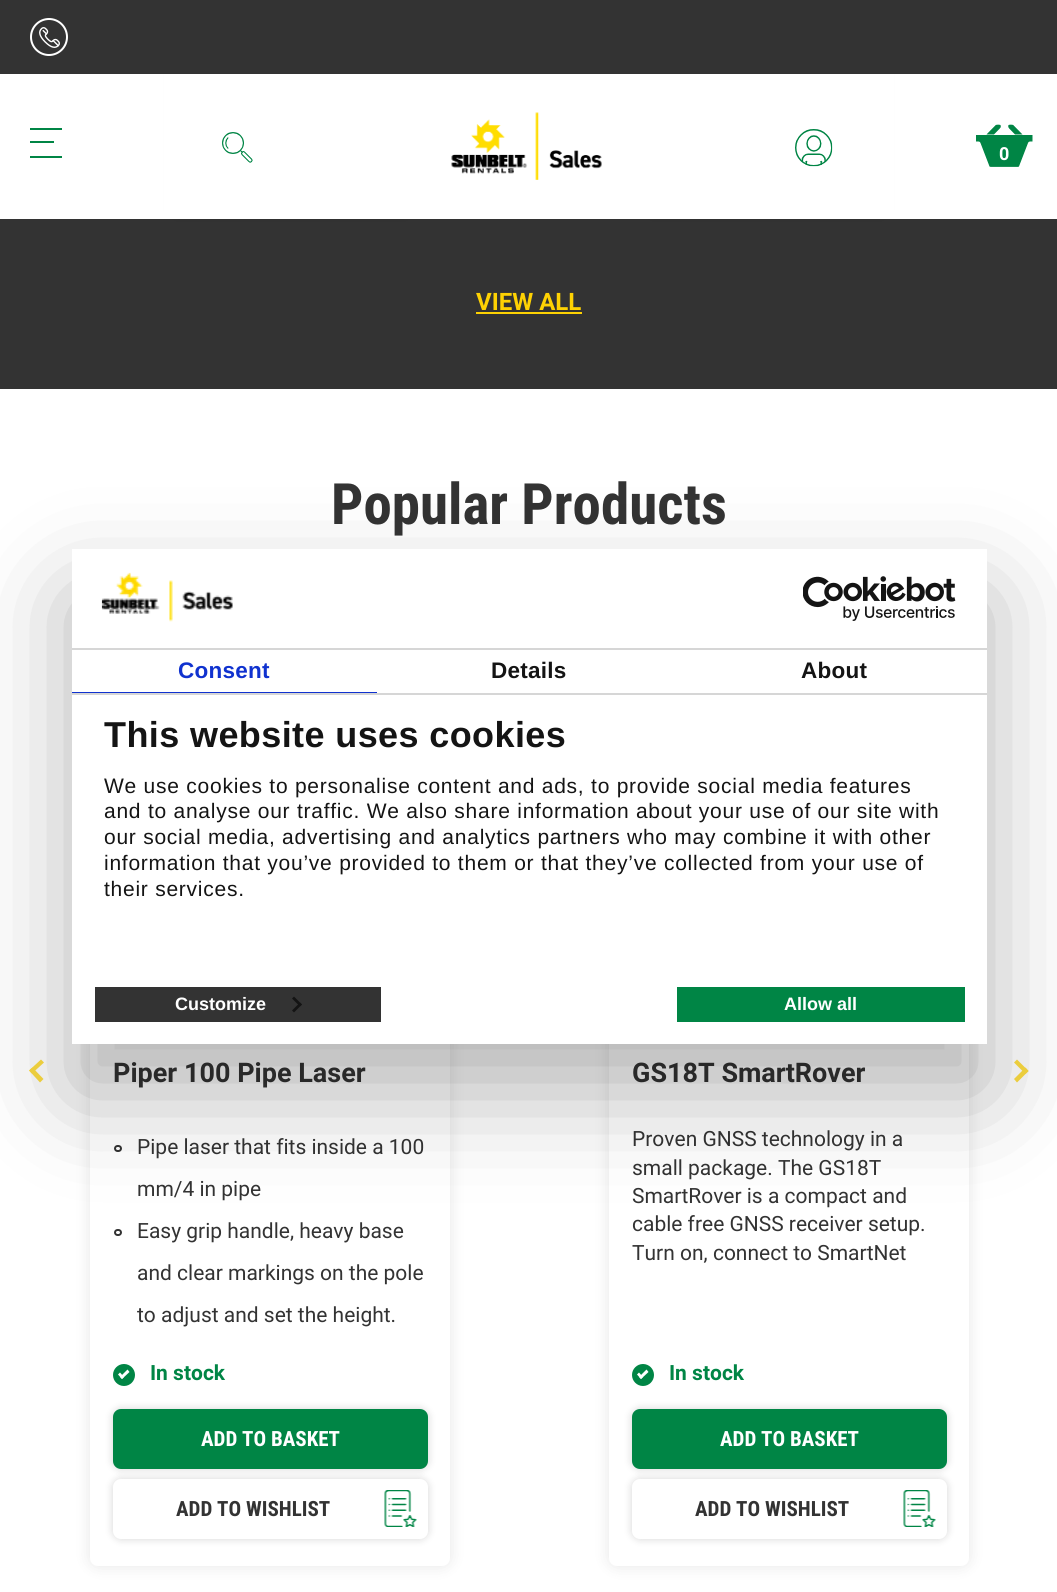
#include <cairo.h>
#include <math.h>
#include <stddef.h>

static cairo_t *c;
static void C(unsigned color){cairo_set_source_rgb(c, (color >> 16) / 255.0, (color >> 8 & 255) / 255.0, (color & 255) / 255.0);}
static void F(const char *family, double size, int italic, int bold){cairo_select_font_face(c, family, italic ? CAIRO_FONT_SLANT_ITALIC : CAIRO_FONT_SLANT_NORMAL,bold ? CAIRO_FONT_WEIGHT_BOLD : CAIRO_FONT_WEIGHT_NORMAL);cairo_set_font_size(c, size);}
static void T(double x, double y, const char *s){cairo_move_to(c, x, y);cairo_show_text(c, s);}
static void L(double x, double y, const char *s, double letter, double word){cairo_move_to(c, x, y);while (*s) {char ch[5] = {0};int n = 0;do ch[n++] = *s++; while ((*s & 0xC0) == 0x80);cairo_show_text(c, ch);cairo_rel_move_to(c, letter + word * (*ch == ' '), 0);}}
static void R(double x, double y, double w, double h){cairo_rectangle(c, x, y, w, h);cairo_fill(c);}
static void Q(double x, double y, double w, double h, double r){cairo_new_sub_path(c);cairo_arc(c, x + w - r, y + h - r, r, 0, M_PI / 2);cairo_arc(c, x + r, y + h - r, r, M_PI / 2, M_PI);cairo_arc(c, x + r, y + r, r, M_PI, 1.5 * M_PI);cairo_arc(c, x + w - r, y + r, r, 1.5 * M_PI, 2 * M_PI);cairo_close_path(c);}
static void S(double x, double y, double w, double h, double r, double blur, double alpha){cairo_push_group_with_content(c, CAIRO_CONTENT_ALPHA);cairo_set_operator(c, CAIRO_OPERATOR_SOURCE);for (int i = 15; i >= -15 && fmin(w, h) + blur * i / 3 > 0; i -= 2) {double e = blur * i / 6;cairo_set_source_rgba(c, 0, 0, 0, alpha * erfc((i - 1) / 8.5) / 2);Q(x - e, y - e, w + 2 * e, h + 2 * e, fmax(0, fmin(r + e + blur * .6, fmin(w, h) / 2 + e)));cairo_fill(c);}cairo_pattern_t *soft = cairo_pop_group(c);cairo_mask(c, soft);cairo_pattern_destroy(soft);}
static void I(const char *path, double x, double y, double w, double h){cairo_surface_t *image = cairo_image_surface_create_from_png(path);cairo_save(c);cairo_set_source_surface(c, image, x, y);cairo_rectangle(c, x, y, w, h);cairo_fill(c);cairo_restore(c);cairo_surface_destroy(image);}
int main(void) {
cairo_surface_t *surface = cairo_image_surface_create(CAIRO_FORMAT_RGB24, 1057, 1592);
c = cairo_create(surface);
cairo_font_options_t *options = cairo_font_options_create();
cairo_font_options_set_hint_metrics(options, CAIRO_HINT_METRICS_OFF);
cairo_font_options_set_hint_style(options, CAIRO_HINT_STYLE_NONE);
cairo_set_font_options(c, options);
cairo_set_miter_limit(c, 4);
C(0xffffff);
cairo_paint(c);
C(0x333333);
R(0,219,1057,170);
C(0x000000);
S(171,21,240,195,8,4.5,.16);
S(647,21,240,195,8,4.5,.16);
C(0xffffff);
R(164,74,730,145);
C(0x333333);
R(0,0,1057,74);
cairo_arc(c,49,37,18,0,2 * M_PI);
C(0xffffff);
cairo_stroke(c);
I("1.png",39,27,21,21);
C(0x008545);
R(30,128,32,2);
R(30,156,32,2);
R(30,141,24,2);
I("2.png",222,132,31,31);
I("3.png",451,112,151,68);
I("4.png",795,129,38,38);
I("5.png",976,124,57,43);
F("Roboto",18,0,1);
C(0xffffff);
T(999,160,"0");
F("Roboto",24,0,1);
C(0xfed203);
T(476,310,"VIEW ALL");
R(476,312,106,2);
F("Roboto Condensed",57,0,1);
C(0x333333);
T(331,524,"Popular Products");
C(0xfedd42);
cairo_new_path(c);
cairo_move_to(c,29,1070.5);
cairo_line_to(c,41,1059.5);
cairo_line_to(c,44,1062.5);
cairo_line_to(c,32,1073.5);
cairo_close_path(c);
cairo_fill(c);
cairo_new_path(c);
cairo_move_to(c,29,1070.5);
cairo_line_to(c,32.5,1067.5);
cairo_line_to(c,43.5,1079);
cairo_line_to(c,40,1082.5);
cairo_close_path(c);
cairo_fill(c);
C(0x000000);
S(90,576,360,990,8,7.5,.1);
C(0xffffff);
Q(90,576,360,990,8);
cairo_fill(c);
F("Roboto",27,0,1);
C(0x333333);
T(113,1082,"Piper 100 Pipe Laser");
Q(115,1146,6,5,2.5);
cairo_stroke(c);
F("Roboto",21,0,0);
T(137,1154,"Pipe laser that fits inside a 100");
T(137,1196,"mm/4 in pipe");
Q(115,1230,6,5,2.5);
cairo_stroke(c);
T(137,1238,"Easy grip handle, heavy base");
T(137,1280,"and clear markings on the pole");
T(137,1322,"to adjust and set the height.");
C(0x008545);
cairo_new_path(c);
cairo_arc(c,124,1375,11,0,2 * M_PI);
cairo_fill(c);
F("Roboto",21,0,1);
T(150,1380,"In stock");
C(0xffffff);
cairo_new_path(c);
cairo_move_to(c,120,1377);
cairo_line_to(c,127.5,1369.5);
cairo_line_to(c,129.5,1372);
cairo_line_to(c,122,1379);
cairo_close_path(c);
cairo_fill(c);
cairo_new_path(c);
cairo_move_to(c,118,1374.5);
cairo_line_to(c,120,1372.5);
cairo_line_to(c,124,1377);
cairo_line_to(c,122,1379);
cairo_close_path(c);
cairo_fill(c);
C(0x000000);
S(113,1409,315,60,8,4.5,.16);
C(0x008545);
Q(113,1409,315,60,8);
cairo_fill(c);
F("Roboto Condensed",21,0,1);
C(0xffffff);
T(201,1446,"ADD TO BASKET");
C(0x000000);
S(113,1479,315,60,8,4.5,.16);
C(0xffffff);
Q(113,1479,315,60,8);
cairo_fill(c);
C(0x333333);
T(176,1516,"ADD TO WISHLIST");
I("6.png",384,1490,33,37);
C(0x000000);
S(609,576,360,990,8,7.5,.1);
C(0xffffff);
Q(609,576,360,990,8);
cairo_fill(c);
F("Roboto",27,0,1);
C(0x333333);
T(632,1082,"GS18T SmartRover");
F("Roboto",21,0,0);
T(632,1146,"Proven GNSS technology in a");
T(632,1175,"small package. The GS18T");
T(632,1203,"SmartRover is a compact and");
T(632,1231,"cable free GNSS receiver setup.");
T(632,1260,"Turn on, connect to SmartNet");
C(0x008545);
cairo_new_path(c);
cairo_arc(c,643,1375,11,0,2 * M_PI);
cairo_fill(c);
F("Roboto",21,0,1);
T(669,1380,"In stock");
C(0xffffff);
cairo_new_path(c);
cairo_move_to(c,639,1377);
cairo_line_to(c,646.5,1369.5);
cairo_line_to(c,648.5,1372);
cairo_line_to(c,641,1379);
cairo_close_path(c);
cairo_fill(c);
cairo_new_path(c);
cairo_move_to(c,637,1374.5);
cairo_line_to(c,639,1372.5);
cairo_line_to(c,643,1377);
cairo_line_to(c,641,1379);
cairo_close_path(c);
cairo_fill(c);
C(0x000000);
S(632,1409,315,60,8,4.5,.16);
C(0x008545);
Q(632,1409,315,60,8);
cairo_fill(c);
F("Roboto Condensed",21,0,1);
C(0xffffff);
T(720,1446,"ADD TO BASKET");
C(0x000000);
S(632,1479,315,60,8,4.5,.16);
C(0xffffff);
Q(632,1479,315,60,8);
cairo_fill(c);
C(0x333333);
T(695,1516,"ADD TO WISHLIST");
I("6.png",903,1490,33,37);
C(0xfedd42);
cairo_new_path(c);
cairo_move_to(c,1028.5,1071);
cairo_line_to(c,1017,1082.5);
cairo_line_to(c,1014,1079);
cairo_line_to(c,1025.5,1067.5);
cairo_close_path(c);
cairo_fill(c);
cairo_new_path(c);
cairo_move_to(c,1028.5,1071);
cairo_line_to(c,1025.5,1074);
cairo_line_to(c,1014,1062.5);
cairo_line_to(c,1017,1059.5);
cairo_close_path(c);
cairo_fill(c);
C(0x000000);
S(72,597,915,495,0,51,.3);
C(0xffffff);
R(72,549,915,495);
C(0xd6d6d6);
R(72,648,915,2);
I("7.png",101,572,132,50);
I("8.png",803,576,153,45);
R(72,693,915,2);
C(0x1032cf);
R(72,692,305,1);
F("Liberation Sans",22.5,0,1);
L(178,678,"Consent",.25,0);
C(0x141414);
L(491,678,"Details",.25,0);
L(801,678,"About",.25,0);
F("Liberation Sans",36,0,1);
L(104,747,"This website uses cookies",.4,0);
F("Liberation Sans",21,0,0);
L(104,793,"We use cookies to personalise content and ads, to provide social media features",.75,0);
L(104,818,"and to analyse our traffic. We also share information about your use of our site with",.75,0);
L(104,844,"our social media, advertising and analytics partners who may combine it with other",.75,0);
L(104,870,"information that you’ve provided to them or that they’ve collected from your use of",.75,0);
L(104,896,"their services.",.75,0);
C(0x333333);
R(95,987,286,35);
F("Liberation Sans",18,0,1);
C(0xffffff);
T(175,1010,"Customize");
C(0x141414);
cairo_new_path(c);
cairo_move_to(c,294,996.5);
cairo_line_to(c,302,1004.5);
cairo_line_to(c,300,1006.5);
cairo_line_to(c,292,998.5);
cairo_close_path(c);
cairo_fill(c);
cairo_new_path(c);
cairo_move_to(c,300,1002.5);
cairo_line_to(c,302,1004.5);
cairo_line_to(c,294,1012.5);
cairo_line_to(c,292,1010.5);
cairo_close_path(c);
cairo_fill(c);
C(0x008545);
R(677,987,288,35);
C(0xffffff);
T(784,1010,"Allow all");
cairo_surface_write_to_png(surface, "o.png");
cairo_font_options_destroy(options);
cairo_destroy(c);
cairo_surface_destroy(surface);
return 0;
}
